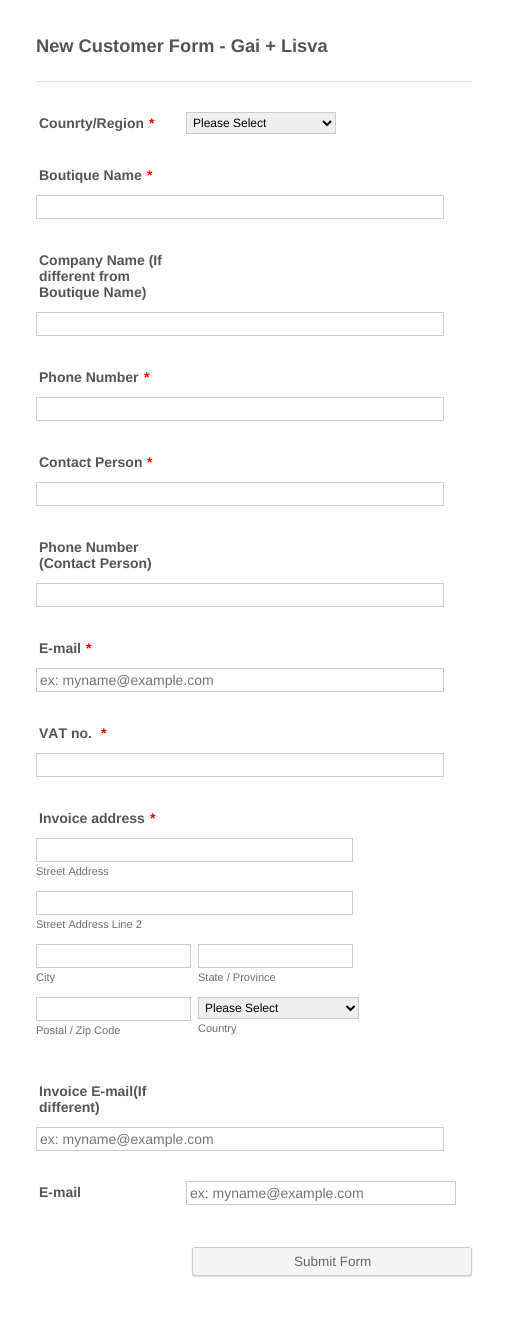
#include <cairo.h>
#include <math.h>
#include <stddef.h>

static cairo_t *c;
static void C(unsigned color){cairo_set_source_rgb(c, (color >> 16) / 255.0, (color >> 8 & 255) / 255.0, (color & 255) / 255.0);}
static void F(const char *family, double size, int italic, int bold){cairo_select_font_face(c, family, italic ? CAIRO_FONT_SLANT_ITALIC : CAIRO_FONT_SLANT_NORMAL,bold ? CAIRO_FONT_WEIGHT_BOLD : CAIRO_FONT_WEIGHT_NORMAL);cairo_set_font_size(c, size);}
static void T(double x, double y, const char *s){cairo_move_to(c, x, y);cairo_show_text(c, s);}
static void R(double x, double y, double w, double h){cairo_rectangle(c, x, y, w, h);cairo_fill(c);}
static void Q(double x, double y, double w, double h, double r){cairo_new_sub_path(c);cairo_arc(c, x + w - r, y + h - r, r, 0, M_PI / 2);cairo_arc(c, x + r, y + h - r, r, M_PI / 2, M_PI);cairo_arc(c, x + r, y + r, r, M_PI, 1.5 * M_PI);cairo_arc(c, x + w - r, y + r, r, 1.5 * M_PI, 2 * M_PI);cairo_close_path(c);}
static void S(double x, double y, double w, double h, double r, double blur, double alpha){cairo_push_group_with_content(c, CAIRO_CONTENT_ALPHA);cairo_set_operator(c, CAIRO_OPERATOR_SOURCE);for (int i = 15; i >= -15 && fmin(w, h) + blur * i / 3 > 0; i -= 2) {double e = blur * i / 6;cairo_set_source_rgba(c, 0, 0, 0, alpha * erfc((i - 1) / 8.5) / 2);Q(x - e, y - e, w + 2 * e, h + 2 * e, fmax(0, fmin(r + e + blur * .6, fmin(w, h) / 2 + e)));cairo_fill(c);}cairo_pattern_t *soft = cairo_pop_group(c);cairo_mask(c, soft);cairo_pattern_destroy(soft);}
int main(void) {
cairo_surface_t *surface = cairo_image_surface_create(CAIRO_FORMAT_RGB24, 508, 1334);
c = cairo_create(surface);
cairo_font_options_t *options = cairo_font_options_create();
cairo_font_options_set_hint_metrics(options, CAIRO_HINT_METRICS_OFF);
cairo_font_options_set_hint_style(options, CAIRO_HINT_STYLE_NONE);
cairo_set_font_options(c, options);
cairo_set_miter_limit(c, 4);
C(0xffffff);
cairo_paint(c);
C(0xe3e3e3);
R(36,81,436,1);
F("Liberation Sans",18.25,0,1);
C(0x555555);
T(36,52,"New Customer Form - Gai + Lisva");
F("Liberation Sans",14,0,1);
T(39,128,"Counrty/Region");
C(0xff0000);
T(149,128,"*");
C(0xefefef);
cairo_rectangle(c,186.5,112.5,149,21);
cairo_fill_preserve(c);
C(0xcccccc);
cairo_set_line_width(c,1);
cairo_stroke(c);
cairo_new_path(c);
cairo_move_to(c,323,121);
cairo_line_to(c,327,125);
cairo_line_to(c,331,121);
C(0x000000);
cairo_set_line_width(c,2);
cairo_stroke(c);
F("Liberation Sans",12,0,0);
T(193,127,"Please Select");
F("Liberation Sans",14,0,1);
C(0x555555);
T(39,180,"Boutique Name");
C(0xff0000);
T(147,180,"*");
cairo_rectangle(c,36.5,195.5,407,23);
C(0xcccccc);
cairo_set_line_width(c,1);
cairo_stroke(c);
C(0x555555);
T(39,265,"Company Name (If");
T(39,281,"different from");
T(39,297,"Boutique Name)");
cairo_rectangle(c,36.5,312.5,407,23);
C(0xcccccc);
cairo_stroke(c);
C(0x555555);
T(39,382,"Phone Number");
C(0xff0000);
T(144,382,"*");
cairo_rectangle(c,36.5,397.5,407,23);
C(0xcccccc);
cairo_stroke(c);
C(0x555555);
T(39,467,"Contact Person");
C(0xff0000);
T(147,467,"*");
cairo_rectangle(c,36.5,482.5,407,23);
C(0xcccccc);
cairo_stroke(c);
C(0x555555);
T(39,552,"Phone Number");
T(39,568,"(Contact Person)");
cairo_rectangle(c,36.5,583.5,407,23);
C(0xcccccc);
cairo_stroke(c);
C(0x555555);
T(39,653,"E-mail");
C(0xff0000);
T(86,653,"*");
cairo_rectangle(c,36.5,668.5,407,23);
C(0xcccccc);
cairo_stroke(c);
F("Liberation Sans",14,0,0);
C(0x757575);
T(40,685,"ex: myname@example.com");
F("Liberation Sans",14,0,1);
C(0x555555);
T(39,738,"VAT no.");
C(0xff0000);
T(101,738,"*");
cairo_rectangle(c,36.5,753.5,407,23);
C(0xcccccc);
cairo_stroke(c);
C(0x555555);
T(39,823,"Invoice address");
C(0xff0000);
T(150,823,"*");
cairo_rectangle(c,36.5,838.5,316,23);
C(0xcccccc);
cairo_stroke(c);
F("Liberation Sans",11,0,0);
C(0x6f6f6f);
T(36,875,"Street Address");
cairo_rectangle(c,36.5,891.5,316,23);
C(0xcccccc);
cairo_stroke(c);
C(0x6f6f6f);
T(36,928,"Street Address Line 2");
cairo_rectangle(c,36.5,944.5,154,23);
C(0xcccccc);
cairo_stroke(c);
C(0x6f6f6f);
T(36,981,"City");
cairo_rectangle(c,198.5,944.5,154,23);
C(0xcccccc);
cairo_stroke(c);
C(0x6f6f6f);
T(198,981,"State / Province");
cairo_rectangle(c,36.5,997.5,154,23);
C(0xcccccc);
cairo_stroke(c);
C(0x6f6f6f);
T(36,1034,"Postal / Zip Code");
C(0xefefef);
cairo_rectangle(c,198.5,997.5,160,21);
cairo_fill_preserve(c);
C(0xcccccc);
cairo_stroke(c);
cairo_new_path(c);
cairo_move_to(c,346.5,1006);
cairo_line_to(c,350.5,1010);
cairo_line_to(c,354.5,1006);
C(0x000000);
cairo_set_line_width(c,2);
cairo_stroke(c);
F("Liberation Sans",12,0,0);
T(205,1012,"Please Select");
F("Liberation Sans",11,0,0);
C(0x6f6f6f);
T(198,1032,"Country");
F("Liberation Sans",14,0,1);
C(0x555555);
T(39,1096,"Invoice E-mail(If");
T(39,1112,"different)");
cairo_rectangle(c,36.5,1127.5,407,23);
C(0xcccccc);
cairo_set_line_width(c,1);
cairo_stroke(c);
F("Liberation Sans",14,0,0);
C(0x757575);
T(40,1144,"ex: myname@example.com");
F("Liberation Sans",14,0,1);
C(0x555555);
T(39,1197,"E-mail");
cairo_rectangle(c,186.5,1181.5,269,23);
C(0xcccccc);
cairo_stroke(c);
F("Liberation Sans",14,0,0);
C(0x757575);
T(190,1198,"ex: myname@example.com");
C(0xdddddd);
S(192,1248,280,29,3,.5,1);
C(0xf5f5f5);
Q(192.5,1247.5,279,28,2.5);
cairo_fill_preserve(c);
C(0xcccccc);
cairo_stroke(c);
F("Liberation Sans",13.5,0,0);
C(0x666666);
T(294,1266,"Submit Form");
cairo_surface_write_to_png(surface, "o.png");
cairo_font_options_destroy(options);
cairo_destroy(c);
cairo_surface_destroy(surface);
return 0;
}
